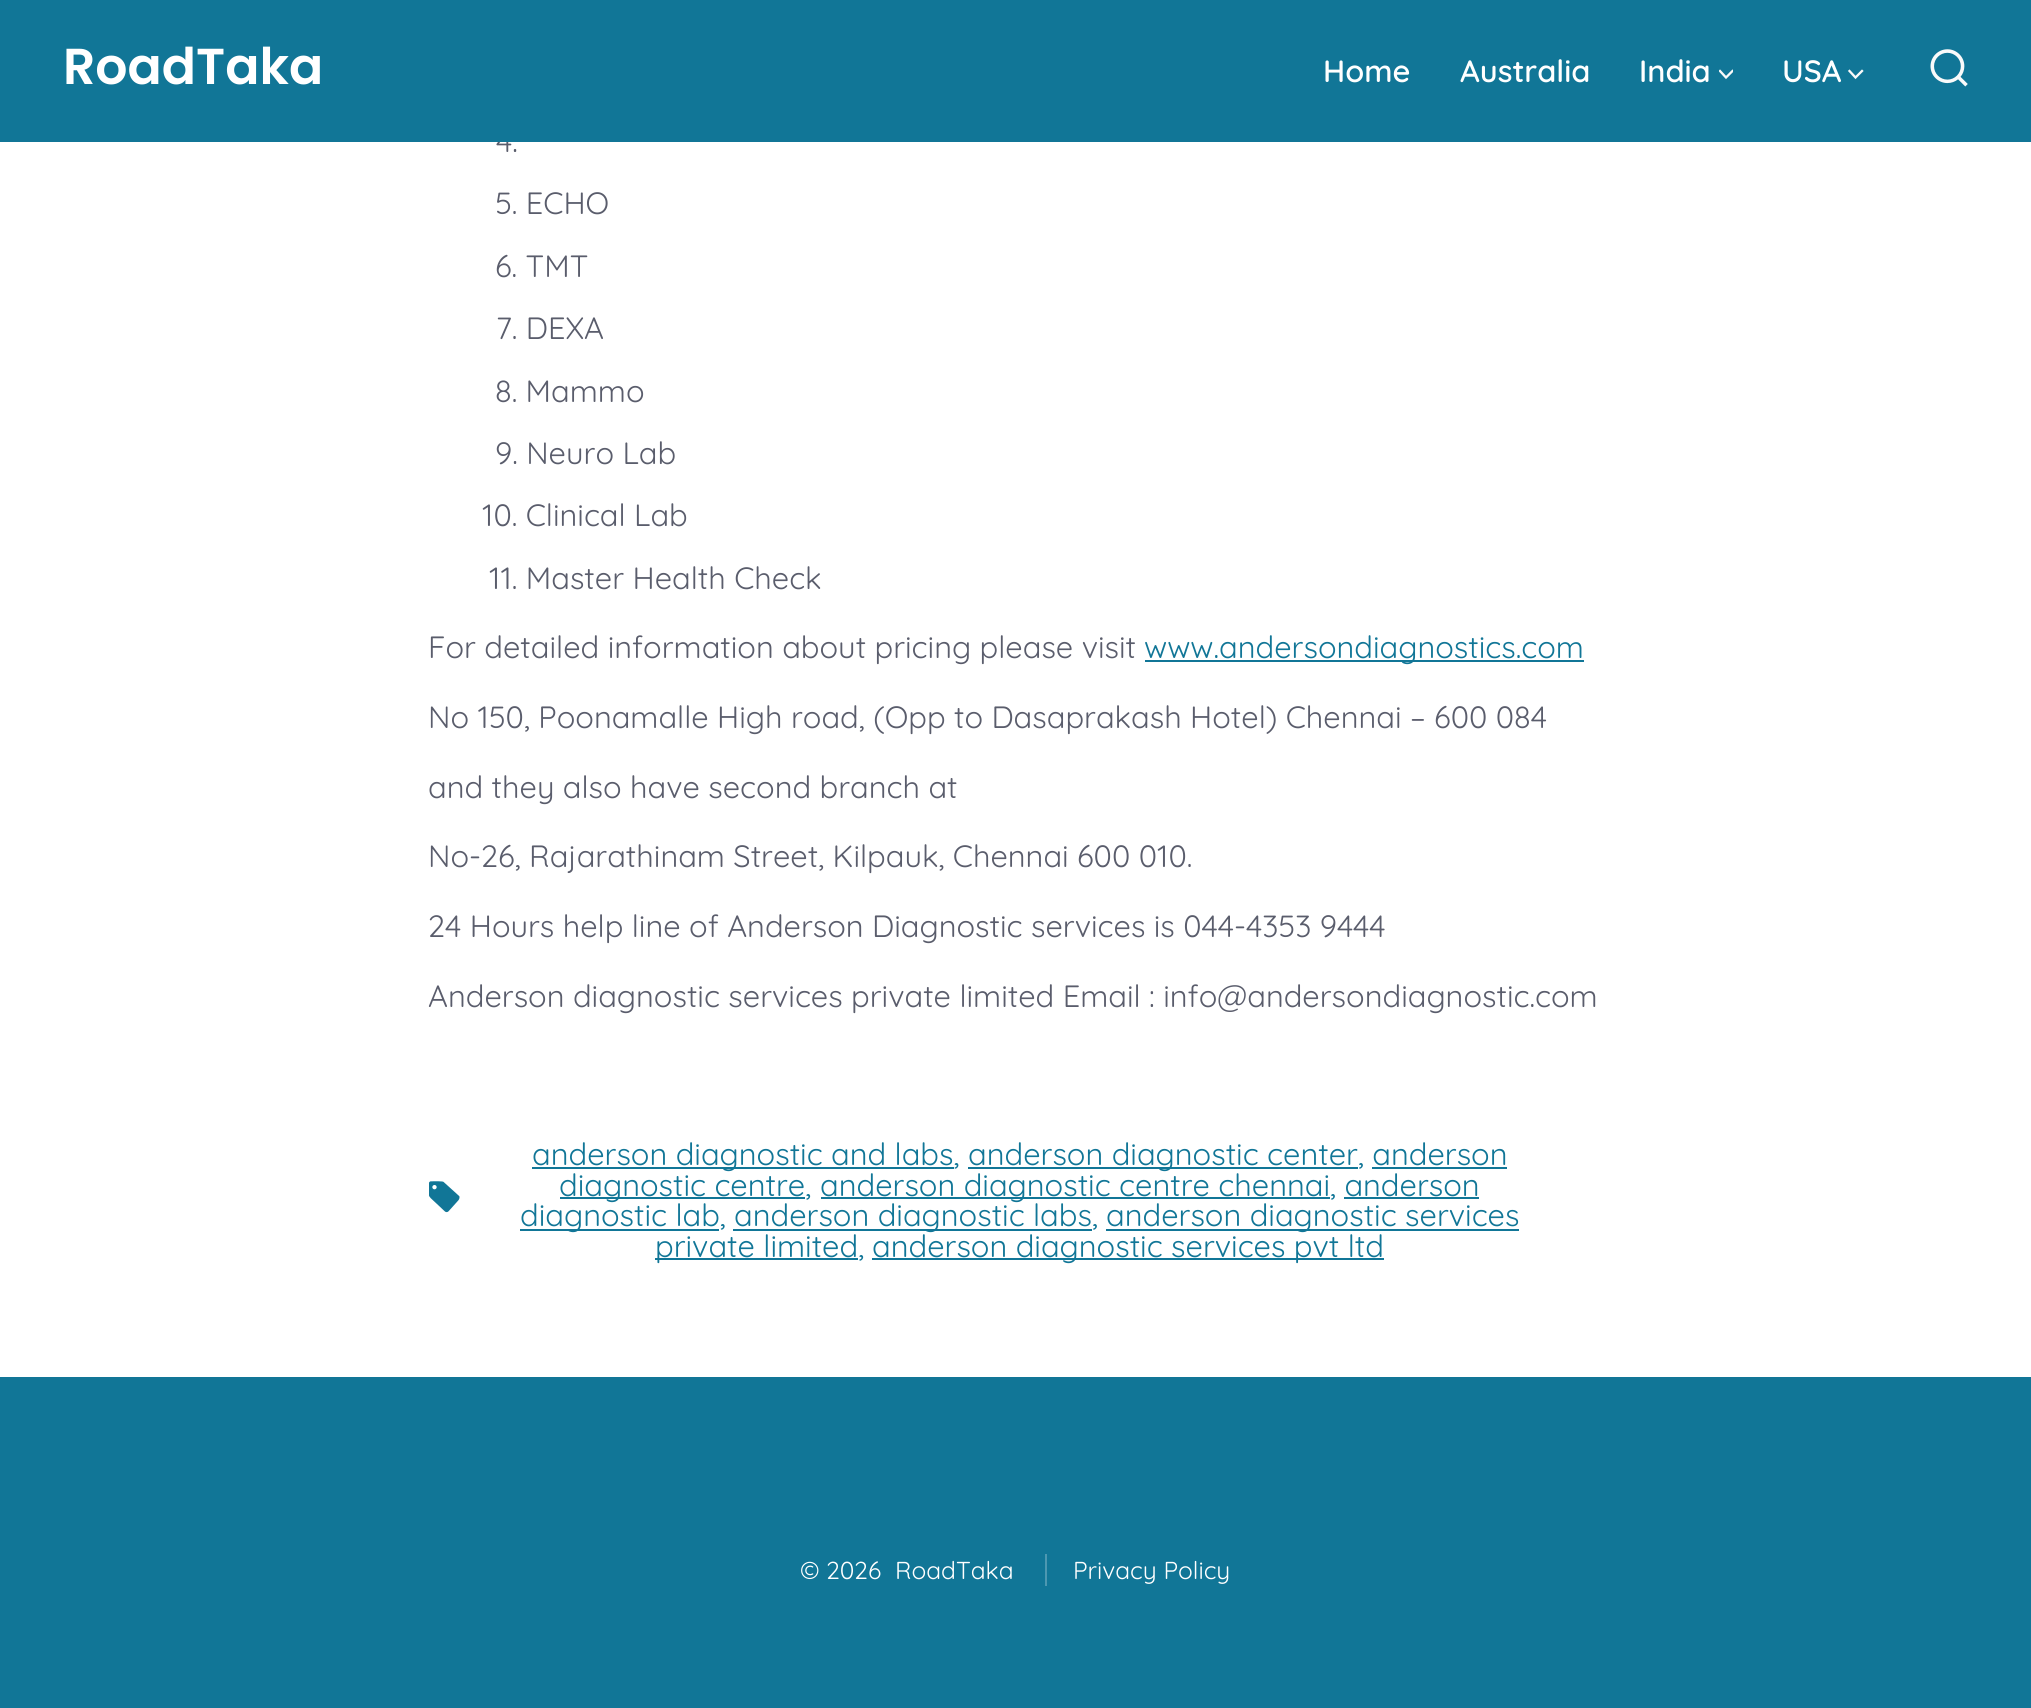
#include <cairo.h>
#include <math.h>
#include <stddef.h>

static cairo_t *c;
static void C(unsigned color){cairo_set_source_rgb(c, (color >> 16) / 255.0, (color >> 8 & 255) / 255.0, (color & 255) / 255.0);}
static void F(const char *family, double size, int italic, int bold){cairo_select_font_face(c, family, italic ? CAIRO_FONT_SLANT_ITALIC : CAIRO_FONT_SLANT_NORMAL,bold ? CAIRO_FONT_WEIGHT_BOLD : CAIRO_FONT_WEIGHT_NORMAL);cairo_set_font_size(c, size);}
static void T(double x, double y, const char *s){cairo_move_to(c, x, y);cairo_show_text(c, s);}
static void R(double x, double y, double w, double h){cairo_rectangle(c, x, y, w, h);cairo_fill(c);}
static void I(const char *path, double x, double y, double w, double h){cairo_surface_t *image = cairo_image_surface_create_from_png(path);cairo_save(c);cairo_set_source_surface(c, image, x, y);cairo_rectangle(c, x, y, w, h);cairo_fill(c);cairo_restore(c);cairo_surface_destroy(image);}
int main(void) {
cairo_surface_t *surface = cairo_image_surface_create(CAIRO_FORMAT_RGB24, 2031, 1708);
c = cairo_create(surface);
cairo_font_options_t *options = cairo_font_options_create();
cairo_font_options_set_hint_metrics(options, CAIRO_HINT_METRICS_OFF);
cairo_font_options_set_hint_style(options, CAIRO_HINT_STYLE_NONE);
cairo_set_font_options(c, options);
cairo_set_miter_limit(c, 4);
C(0xffffff);
cairo_paint(c);
F("Quicksand",30.8,0,0);
C(0x5a5d6c);
T(496,152,"4.");
C(0x117697);
R(0,0,2031,142);
F("Poppins SemiBold",50.5,0,0);
C(0xffffff);
T(63,84,"RoadTaka");
F("Quicksand SemiBold",30.8,0,0);
T(1323,82,"Home");
T(1460,82,"Australia");
T(1639,82,"India");
cairo_save(c);
cairo_rectangle(c,1719,67,14,15);
cairo_clip(c);
cairo_new_path(c);
cairo_move_to(c,1720,71);
cairo_line_to(c,1726,77.5);
cairo_line_to(c,1732.5,71);
C(0xfafafa);
cairo_set_line_width(c,2.3);
cairo_set_line_cap(c,CAIRO_LINE_CAP_SQUARE);
cairo_stroke(c);
cairo_restore(c);
T(1782,82,"USA");
cairo_new_path(c);
cairo_move_to(c,1849.5,71);
cairo_line_to(c,1855.5,77.5);
cairo_line_to(c,1862,71);
C(0xfafafa);
cairo_set_line_width(c,2.3);
cairo_set_line_cap(c,CAIRO_LINE_CAP_SQUARE);
cairo_stroke(c);
I("1.png",1930,49,38,38);
F("Quicksand",30.8,0,0);
C(0x5a5d6c);
T(495,214,"5. ECHO");
T(495,277,"6. TMT");
T(496,339,"7. DEXA");
T(495,402,"8. Mammo");
T(495,464,"9. Neuro Lab");
T(482,526,"10. Clinical Lab");
T(489,589,"11. Master Health Check");
T(428,658,"For detailed information about pricing please visit");
C(0x117697);
R(1145,660,439,2);
T(1144,658,"www.andersondiagnostics.com");
C(0x5a5d6c);
T(428,728,"No 150, Poonamalle High road, (Opp to Dasaprakash Hotel) Chennai – 600 084");
T(428,798,"and they also have second branch at");
T(428,867,"No-26, Rajarathinam Street, Kilpauk, Chennai 600 010.");
T(428,937,"24 Hours help line of Anderson Diagnostic services is 044-4353 9444");
T(428,1007,"Anderson diagnostic services private limited Email : info@andersondiagnostic.com");
I("2.png",429,1181,31,32);
C(0x117697);
R(532,1167,422,2);
T(532,1165,"anderson diagnostic and labs,");
R(968,1167,390,2);
T(968,1165,"anderson diagnostic center, anderson");
R(560,1197,245,2);
T(559,1196,"diagnostic centre,");
R(1372,1167,135,2);
R(821,1197,509,2);
T(820,1196,"anderson diagnostic centre chennai, anderson");
R(520,1229,199,2);
T(520,1226,"diagnostic lab,");
R(1344,1197,135,2);
R(733,1229,359,2);
T(734,1226,"anderson diagnostic labs,");
R(1106,1229,413,2);
T(1106,1226,"anderson diagnostic services");
R(655,1258,203,2);
T(655,1257,"private limited,");
R(872,1258,512,2);
T(872,1257,"anderson diagnostic services pvt ltd");
R(0,1377,2031,331);
F("Quicksand",24.5,0,0);
C(0xffffff);
T(800,1579,"© 2026");
T(895,1579,"RoadTaka");
C(0x4d98b1);
R(1045,1554,2,32);
C(0xffffff);
T(1073,1579,"Privacy Policy");
cairo_surface_write_to_png(surface, "o.png");
cairo_font_options_destroy(options);
cairo_destroy(c);
cairo_surface_destroy(surface);
return 0;
}
